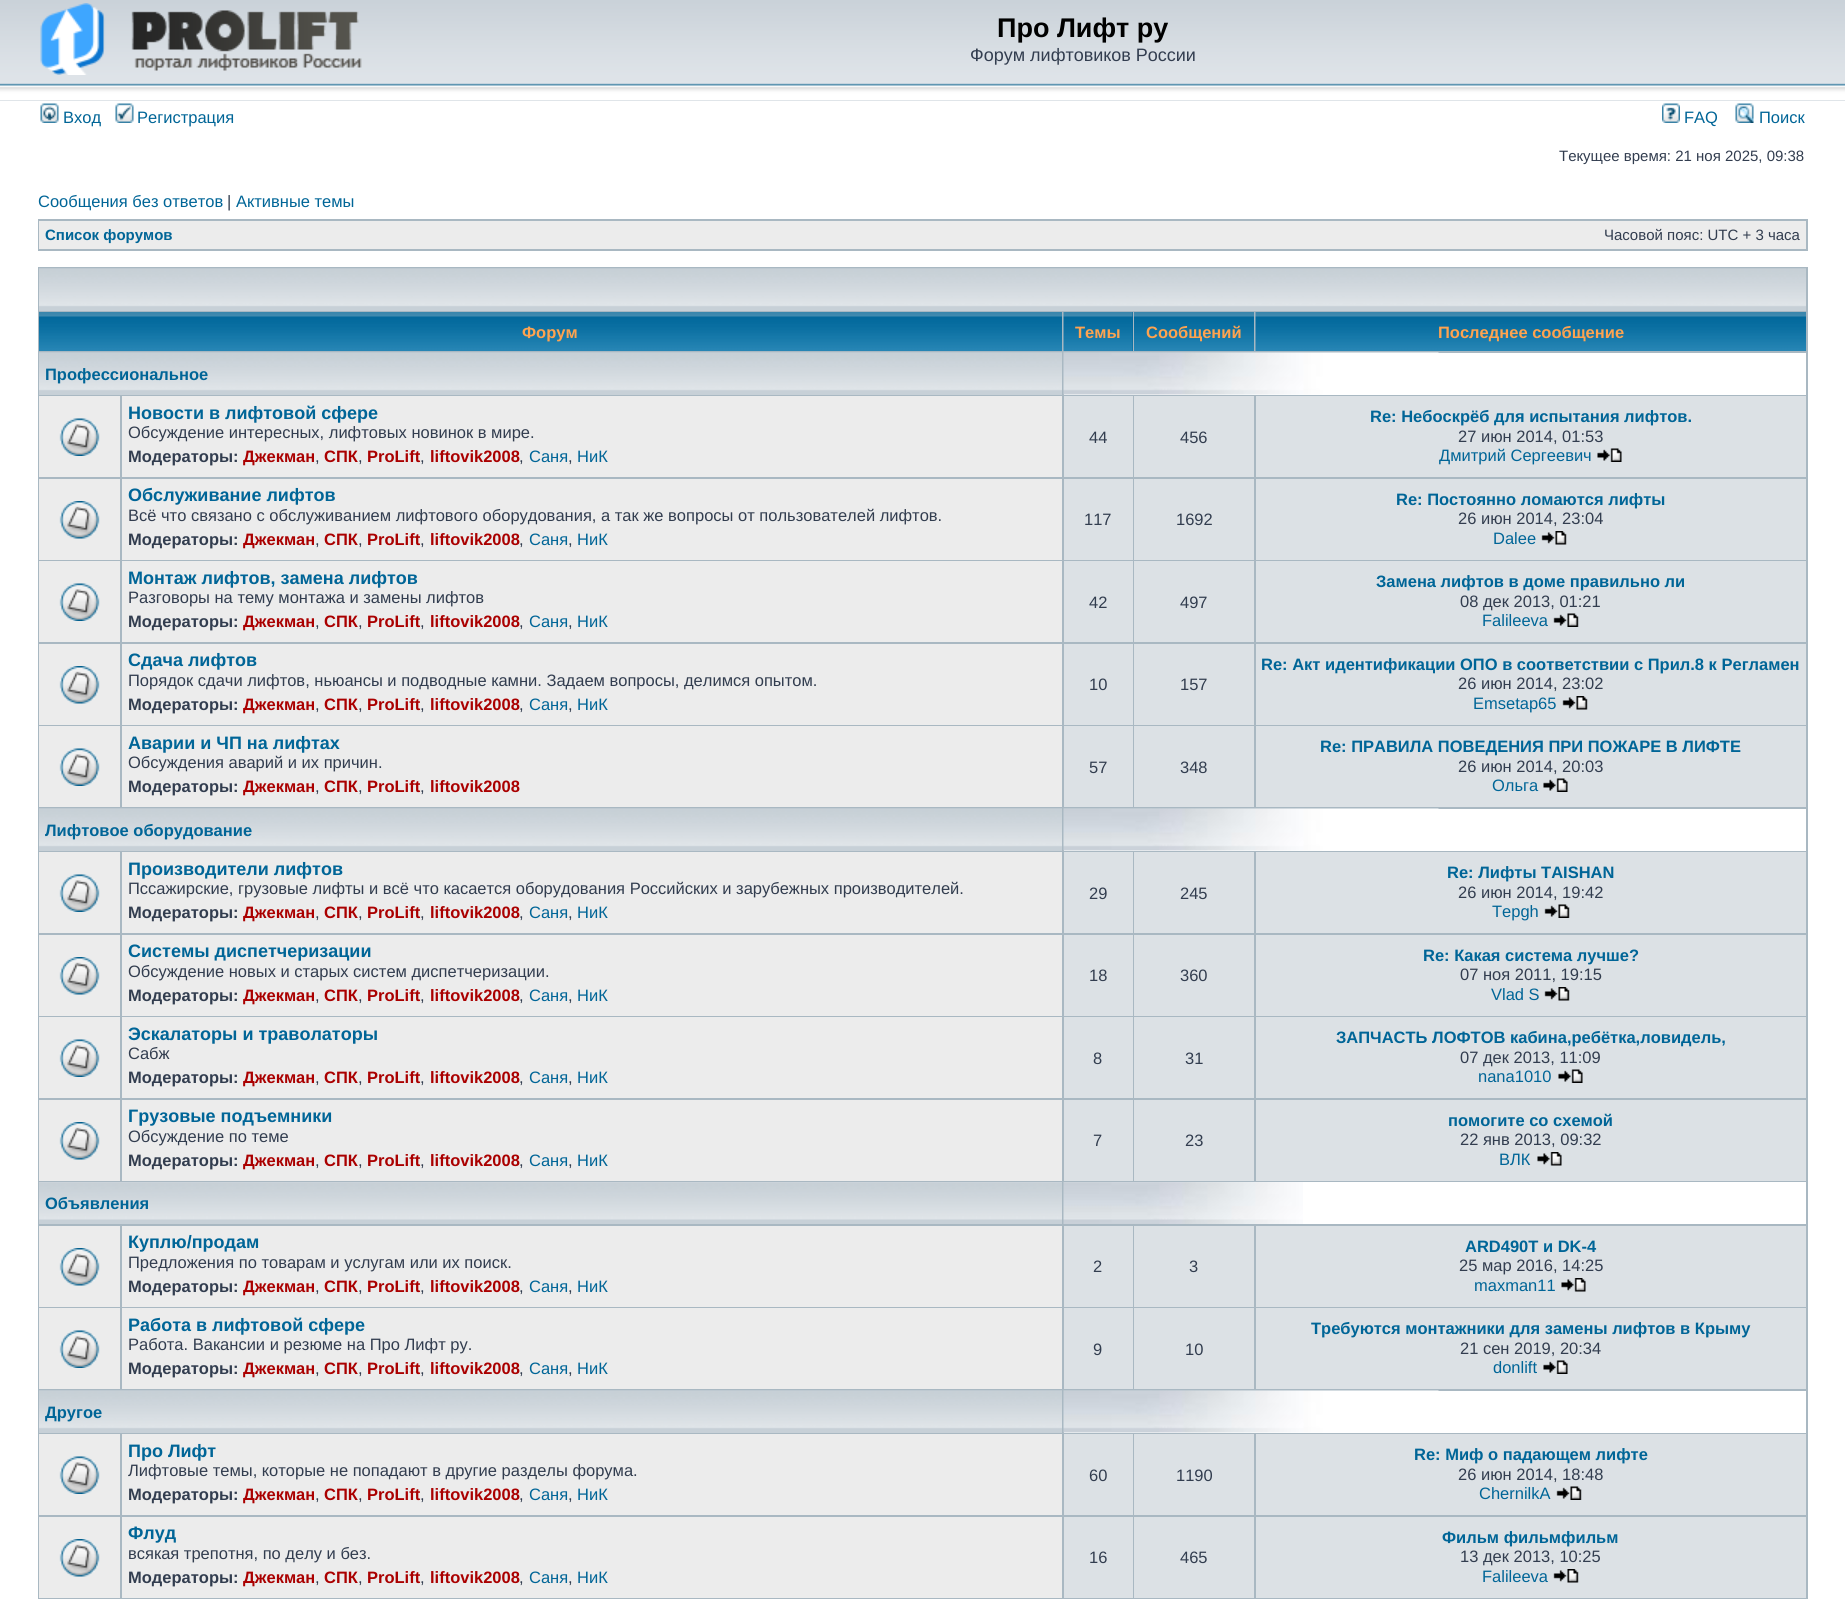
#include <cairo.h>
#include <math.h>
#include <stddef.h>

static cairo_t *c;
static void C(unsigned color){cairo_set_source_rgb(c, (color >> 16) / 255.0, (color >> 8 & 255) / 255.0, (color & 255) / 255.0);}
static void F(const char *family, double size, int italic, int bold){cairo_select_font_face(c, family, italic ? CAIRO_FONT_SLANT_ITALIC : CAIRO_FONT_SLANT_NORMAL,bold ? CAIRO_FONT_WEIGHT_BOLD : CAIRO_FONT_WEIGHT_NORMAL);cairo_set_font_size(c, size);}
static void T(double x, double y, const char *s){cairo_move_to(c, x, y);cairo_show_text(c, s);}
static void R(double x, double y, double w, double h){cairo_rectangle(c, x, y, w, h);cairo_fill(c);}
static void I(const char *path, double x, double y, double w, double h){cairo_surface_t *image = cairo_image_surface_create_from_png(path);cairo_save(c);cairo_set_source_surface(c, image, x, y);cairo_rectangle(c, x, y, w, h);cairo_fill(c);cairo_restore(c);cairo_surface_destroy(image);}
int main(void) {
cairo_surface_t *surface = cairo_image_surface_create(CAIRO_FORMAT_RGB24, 1845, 1603);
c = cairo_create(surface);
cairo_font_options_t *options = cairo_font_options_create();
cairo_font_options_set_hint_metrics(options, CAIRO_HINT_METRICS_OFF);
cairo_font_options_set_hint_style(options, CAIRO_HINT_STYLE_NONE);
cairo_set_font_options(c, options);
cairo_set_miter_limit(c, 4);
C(0xffffff);
cairo_paint(c);
C(0xc1cad2);
R(0,100,1845,1);
I("1.png",0,0,1845,101);
I("2.png",40,3,322,72);
F("Liberation Sans",27,0,1);
C(0x000000);
T(997,37,"Про Лифт ру");
F("Liberation Sans",18,0,0);
C(0x323d4f);
T(970,61,"Форум лифтовиков России");
I("3.png",40,103,19,20);
F("Liberation Sans",16.5,0,0);
C(0x006597);
T(63,123,"Вход");
I("4.png",115,103,19,20);
T(137,123,"Регистрация");
I("5.png",1662,103,18,20);
T(1684,123,"FAQ");
I("6.png",1735,103,19,20);
T(1759,123,"Поиск");
F("Liberation Sans",15,0,0);
C(0x323d4f);
T(1559,161,"Текущее время: 21 ноя 2025, 09:38");
F("Liberation Sans",16.5,0,0);
C(0x006597);
T(38,207,"Сообщения без ответов");
C(0x323d4f);
T(227,207,"|");
C(0x006597);
T(236,207,"Активные темы");
C(0xa9b8c2);
R(38,219,1770,32);
C(0xececec);
R(39,221,1767,28);
F("Liberation Sans",15,0,1);
C(0x006597);
T(45,240,"Список форумов");
F("Liberation Sans",15,0,0);
C(0x323d4f);
T(1604,240,"Часовой пояс: UTC + 3 часа");
C(0xa9b8c2);
R(38,267,1770,1332);
C(0xc7d0d7);
R(39,307,1767,4);
I("7.png",39,268,1767,39);
I("8.png",39,312,1023,39);
F("Liberation Sans",16.5,0,1);
C(0xffa34f);
T(522,338,"Форум");
C(0x006699);
R(1132,312,1,39);
I("9.png",1063,312,70,39);
C(0xffa34f);
T(1075,338,"Темы");
I("10.png",1134,312,120,39);
T(1146,338,"Сообщений");
I("11.png",1255,312,551,39);
T(1438,338,"Последнее сообщение");
C(0xc7d0d7);
R(39,391,1023,4);
I("12.png",39,352,1023,39);
C(0x006597);
T(45,380,"Профессиональное");
C(0xffffff);
R(1064,353,742,42);
I("13.png",1063,352,376,43);
C(0xececec);
R(39,396,81,81);
I("14.png",59,418,41,38);
R(122,396,940,81);
F("Liberation Sans",18,0,1);
C(0x006597);
T(128,419,"Новости в лифтовой сфере");
F("Liberation Sans",16.5,0,0);
C(0x323d4f);
T(128,438,"Обсуждение интересных, лифтовых новинок в мире.");
F("Liberation Sans",16.5,0,1);
T(128,462,"Модераторы:");
C(0xaa0000);
T(243,462,"Джекман");
T(324,462,"СПК");
T(367,462,"ProLift");
T(430,462,"liftovik2008");
F("Liberation Sans",16.5,0,0);
C(0x006597);
T(529,462,"Саня");
T(577,462,"НиК");
C(0x323d4f);
T(315,462,",");
T(358,462,",");
T(420,462,",");
T(519,462,",");
T(568,462,",");
C(0xdce1e5);
R(1064,396,69,81);
C(0x323d4f);
T(1089,443,"44");
C(0xdce1e5);
R(1134,396,120,81);
C(0x323d4f);
T(1180,443,"456");
C(0xdce1e5);
R(1256,396,550,81);
F("Liberation Sans",16.5,0,1);
C(0x006597);
T(1370,422,"Re: Небоскрёб для испытания лифтов.");
F("Liberation Sans",16.5,0,0);
C(0x323d4f);
T(1458,442,"27 июн 2014, 01:53");
C(0x006597);
T(1439,461,"Дмитрий Сергеевич");
I("15.png",1597,448,25,14);
C(0xececec);
R(39,479,81,81);
I("16.png",59,501,41,38);
R(122,479,940,81);
F("Liberation Sans",18,0,1);
C(0x006597);
T(128,501,"Обслуживание лифтов");
F("Liberation Sans",16.5,0,0);
C(0x323d4f);
T(128,521,"Всё что связано с обслуживанием лифтового оборудования, а так же вопросы от пользователей лифтов.");
F("Liberation Sans",16.5,0,1);
T(128,545,"Модераторы:");
C(0xaa0000);
T(243,545,"Джекман");
T(324,545,"СПК");
T(367,545,"ProLift");
T(430,545,"liftovik2008");
F("Liberation Sans",16.5,0,0);
C(0x006597);
T(529,545,"Саня");
T(577,545,"НиК");
C(0x323d4f);
T(315,545,",");
T(358,545,",");
T(420,545,",");
T(519,545,",");
T(568,545,",");
C(0xdce1e5);
R(1064,479,69,81);
C(0x323d4f);
T(1084,525,"117");
C(0xdce1e5);
R(1134,479,120,81);
C(0x323d4f);
T(1176,525,"1692");
C(0xdce1e5);
R(1256,479,550,81);
F("Liberation Sans",16.5,0,1);
C(0x006597);
T(1396,505,"Re: Постоянно ломаются лифты");
F("Liberation Sans",16.5,0,0);
C(0x323d4f);
T(1458,524,"26 июн 2014, 23:04");
C(0x006597);
T(1493,544,"Dalee");
I("17.png",1541,531,26,14);
C(0xececec);
R(39,561,81,81);
I("14.png",59,583,41,38);
R(122,561,940,81);
F("Liberation Sans",18,0,1);
C(0x006597);
T(128,584,"Монтаж лифтов, замена лифтов");
F("Liberation Sans",16.5,0,0);
C(0x323d4f);
T(128,603,"Разговоры на тему монтажа и замены лифтов");
F("Liberation Sans",16.5,0,1);
T(128,627,"Модераторы:");
C(0xaa0000);
T(243,627,"Джекман");
T(324,627,"СПК");
T(367,627,"ProLift");
T(430,627,"liftovik2008");
F("Liberation Sans",16.5,0,0);
C(0x006597);
T(529,627,"Саня");
T(577,627,"НиК");
C(0x323d4f);
T(315,627,",");
T(358,627,",");
T(420,627,",");
T(519,627,",");
T(568,627,",");
C(0xdce1e5);
R(1064,561,69,81);
C(0x323d4f);
T(1089,608,"42");
C(0xdce1e5);
R(1134,561,120,81);
C(0x323d4f);
T(1180,608,"497");
C(0xdce1e5);
R(1256,561,550,81);
F("Liberation Sans",16.5,0,1);
C(0x006597);
T(1376,587,"Замена лифтов в доме правильно ли");
F("Liberation Sans",16.5,0,0);
C(0x323d4f);
T(1460,607,"08 дек 2013, 01:21");
C(0x006597);
T(1482,626,"Falileeva");
I("18.png",1553,613,26,14);
C(0xececec);
R(39,644,81,81);
I("16.png",59,666,41,38);
R(122,644,940,81);
F("Liberation Sans",18,0,1);
C(0x006597);
T(128,666,"Сдача лифтов");
F("Liberation Sans",16.5,0,0);
C(0x323d4f);
T(128,686,"Порядок сдачи лифтов, ньюансы и подводные камни. Задаем вопросы, делимся опытом.");
F("Liberation Sans",16.5,0,1);
T(128,710,"Модераторы:");
C(0xaa0000);
T(243,710,"Джекман");
T(324,710,"СПК");
T(367,710,"ProLift");
T(430,710,"liftovik2008");
F("Liberation Sans",16.5,0,0);
C(0x006597);
T(529,710,"Саня");
T(577,710,"НиК");
C(0x323d4f);
T(315,710,",");
T(358,710,",");
T(420,710,",");
T(519,710,",");
T(568,710,",");
C(0xdce1e5);
R(1064,644,69,81);
C(0x323d4f);
T(1089,690,"10");
C(0xdce1e5);
R(1134,644,120,81);
C(0x323d4f);
T(1180,690,"157");
C(0xdce1e5);
R(1256,644,550,81);
F("Liberation Sans",16.5,0,1);
C(0x006597);
T(1261,670,"Re: Акт идентификации ОПО в соответствии с Прил.8 к Регламен");
F("Liberation Sans",16.5,0,0);
C(0x323d4f);
T(1458,689,"26 июн 2014, 23:02");
C(0x006597);
T(1473,709,"Emsetap65");
I("17.png",1562,696,26,14);
C(0xececec);
R(39,726,81,81);
I("14.png",59,748,41,38);
R(122,726,940,81);
F("Liberation Sans",18,0,1);
C(0x006597);
T(128,749,"Аварии и ЧП на лифтах");
F("Liberation Sans",16.5,0,0);
C(0x323d4f);
T(128,768,"Обсуждения аварий и их причин.");
F("Liberation Sans",16.5,0,1);
T(128,792,"Модераторы:");
C(0xaa0000);
T(243,792,"Джекман");
F("Liberation Sans",16.5,0,0);
C(0x323d4f);
T(315,792,",");
F("Liberation Sans",16.5,0,1);
C(0xaa0000);
T(324,792,"СПК");
F("Liberation Sans",16.5,0,0);
C(0x323d4f);
T(358,792,",");
F("Liberation Sans",16.5,0,1);
C(0xaa0000);
T(367,792,"ProLift");
F("Liberation Sans",16.5,0,0);
C(0x323d4f);
T(420,792,",");
F("Liberation Sans",16.5,0,1);
C(0xaa0000);
T(430,792,"liftovik2008");
C(0xdce1e5);
R(1064,726,69,81);
F("Liberation Sans",16.5,0,0);
C(0x323d4f);
T(1089,773,"57");
C(0xdce1e5);
R(1134,726,120,81);
C(0x323d4f);
T(1180,773,"348");
C(0xdce1e5);
R(1256,726,550,81);
F("Liberation Sans",16.5,0,1);
C(0x006597);
T(1320,752,"Re: ПРАВИЛА ПОВЕДЕНИЯ ПРИ ПОЖАРЕ В ЛИФТЕ");
F("Liberation Sans",16.5,0,0);
C(0x323d4f);
T(1458,772,"26 июн 2014, 20:03");
C(0x006597);
T(1492,791,"Ольга");
I("15.png",1543,778,25,14);
C(0xc7d0d7);
R(39,847,1023,4);
I("12.png",39,808,1023,39);
F("Liberation Sans",16.5,0,1);
C(0x006597);
T(45,836,"Лифтовое оборудование");
C(0xffffff);
R(1064,809,742,42);
I("19.png",1063,808,376,43);
C(0xececec);
R(39,852,81,81);
I("14.png",59,874,41,38);
R(122,852,940,81);
F("Liberation Sans",18,0,1);
C(0x006597);
T(128,875,"Производители лифтов");
F("Liberation Sans",16.5,0,0);
C(0x323d4f);
T(128,894,"Пссажирские, грузовые лифты и всё что касается оборудования Российских и зарубежных производителей.");
F("Liberation Sans",16.5,0,1);
T(128,918,"Модераторы:");
C(0xaa0000);
T(243,918,"Джекман");
T(324,918,"СПК");
T(367,918,"ProLift");
T(430,918,"liftovik2008");
F("Liberation Sans",16.5,0,0);
C(0x006597);
T(529,918,"Саня");
T(577,918,"НиК");
C(0x323d4f);
T(315,918,",");
T(358,918,",");
T(420,918,",");
T(519,918,",");
T(568,918,",");
C(0xdce1e5);
R(1064,852,69,81);
C(0x323d4f);
T(1089,899,"29");
C(0xdce1e5);
R(1134,852,120,81);
C(0x323d4f);
T(1180,899,"245");
C(0xdce1e5);
R(1256,852,550,81);
F("Liberation Sans",16.5,0,1);
C(0x006597);
T(1447,878,"Re: Лифты TAISHAN");
F("Liberation Sans",16.5,0,0);
C(0x323d4f);
T(1458,898,"26 июн 2014, 19:42");
C(0x006597);
T(1492,917,"Tepgh");
I("18.png",1544,904,26,14);
C(0xececec);
R(39,935,81,81);
I("16.png",59,957,41,38);
R(122,935,940,81);
F("Liberation Sans",18,0,1);
C(0x006597);
T(128,957,"Системы диспетчеризации");
F("Liberation Sans",16.5,0,0);
C(0x323d4f);
T(128,977,"Обсуждение новых и старых систем диспетчеризации.");
F("Liberation Sans",16.5,0,1);
T(128,1001,"Модераторы:");
C(0xaa0000);
T(243,1001,"Джекман");
T(324,1001,"СПК");
T(367,1001,"ProLift");
T(430,1001,"liftovik2008");
F("Liberation Sans",16.5,0,0);
C(0x006597);
T(529,1001,"Саня");
T(577,1001,"НиК");
C(0x323d4f);
T(315,1001,",");
T(358,1001,",");
T(420,1001,",");
T(519,1001,",");
T(568,1001,",");
C(0xdce1e5);
R(1064,935,69,81);
C(0x323d4f);
T(1089,981,"18");
C(0xdce1e5);
R(1134,935,120,81);
C(0x323d4f);
T(1180,981,"360");
C(0xdce1e5);
R(1256,935,550,81);
F("Liberation Sans",16.5,0,1);
C(0x006597);
T(1423,961,"Re: Какая система лучше?");
F("Liberation Sans",16.5,0,0);
C(0x323d4f);
T(1460,980,"07 ноя 2011, 19:15");
C(0x006597);
T(1491,1000,"Vlad S");
I("17.png",1544,987,26,14);
C(0xececec);
R(39,1017,81,81);
I("14.png",59,1039,41,38);
R(122,1017,940,81);
F("Liberation Sans",18,0,1);
C(0x006597);
T(128,1040,"Эскалаторы и траволаторы");
F("Liberation Sans",16.5,0,0);
C(0x323d4f);
T(128,1059,"Сабж");
F("Liberation Sans",16.5,0,1);
T(128,1083,"Модераторы:");
C(0xaa0000);
T(243,1083,"Джекман");
T(324,1083,"СПК");
T(367,1083,"ProLift");
T(430,1083,"liftovik2008");
F("Liberation Sans",16.5,0,0);
C(0x006597);
T(529,1083,"Саня");
T(577,1083,"НиК");
C(0x323d4f);
T(315,1083,",");
T(358,1083,",");
T(420,1083,",");
T(519,1083,",");
T(568,1083,",");
C(0xdce1e5);
R(1064,1017,69,81);
C(0x323d4f);
T(1093,1064,"8");
C(0xdce1e5);
R(1134,1017,120,81);
C(0x323d4f);
T(1185,1064,"31");
C(0xdce1e5);
R(1256,1017,550,81);
F("Liberation Sans",16.5,0,1);
C(0x006597);
T(1336,1043,"ЗАПЧАСТЬ ЛОФТОВ кабина,ребётка,ловидель,");
F("Liberation Sans",16.5,0,0);
C(0x323d4f);
T(1460,1063,"07 дек 2013, 11:09");
C(0x006597);
T(1478,1082,"nana1010");
I("15.png",1558,1069,25,14);
C(0xececec);
R(39,1100,81,81);
I("16.png",59,1122,41,38);
R(122,1100,940,81);
F("Liberation Sans",18,0,1);
C(0x006597);
T(128,1122,"Грузовые подъемники");
F("Liberation Sans",16.5,0,0);
C(0x323d4f);
T(128,1142,"Обсуждение по теме");
F("Liberation Sans",16.5,0,1);
T(128,1166,"Модераторы:");
C(0xaa0000);
T(243,1166,"Джекман");
T(324,1166,"СПК");
T(367,1166,"ProLift");
T(430,1166,"liftovik2008");
F("Liberation Sans",16.5,0,0);
C(0x006597);
T(529,1166,"Саня");
T(577,1166,"НиК");
C(0x323d4f);
T(315,1166,",");
T(358,1166,",");
T(420,1166,",");
T(519,1166,",");
T(568,1166,",");
C(0xdce1e5);
R(1064,1100,69,81);
C(0x323d4f);
T(1093,1146,"7");
C(0xdce1e5);
R(1134,1100,120,81);
C(0x323d4f);
T(1185,1146,"23");
C(0xdce1e5);
R(1256,1100,550,81);
F("Liberation Sans",16.5,0,1);
C(0x006597);
T(1448,1126,"помогите со схемой");
F("Liberation Sans",16.5,0,0);
C(0x323d4f);
T(1460,1145,"22 янв 2013, 09:32");
C(0x006597);
T(1499,1165,"ВЛК");
I("20.png",1537,1152,25,14);
C(0xc7d0d7);
R(39,1220,1023,4);
I("21.png",39,1182,1023,38);
F("Liberation Sans",16.5,0,1);
C(0x006597);
T(45,1209,"Объявления");
C(0xffffff);
R(1303,1182,503,42);
I("22.png",1063,1182,240,42);
C(0xececec);
R(39,1226,81,81);
I("16.png",59,1248,41,38);
R(122,1226,940,81);
F("Liberation Sans",18,0,1);
C(0x006597);
T(128,1248,"Куплю/продам");
F("Liberation Sans",16.5,0,0);
C(0x323d4f);
T(128,1268,"Предложения по товарам и услугам или их поиск.");
F("Liberation Sans",16.5,0,1);
T(128,1292,"Модераторы:");
C(0xaa0000);
T(243,1292,"Джекман");
T(324,1292,"СПК");
T(367,1292,"ProLift");
T(430,1292,"liftovik2008");
F("Liberation Sans",16.5,0,0);
C(0x006597);
T(529,1292,"Саня");
T(577,1292,"НиК");
C(0x323d4f);
T(315,1292,",");
T(358,1292,",");
T(420,1292,",");
T(519,1292,",");
T(568,1292,",");
C(0xdce1e5);
R(1064,1226,69,81);
C(0x323d4f);
T(1093,1272,"2");
C(0xdce1e5);
R(1134,1226,120,81);
C(0x323d4f);
T(1189,1272,"3");
C(0xdce1e5);
R(1256,1226,550,81);
F("Liberation Sans",16.5,0,1);
C(0x006597);
T(1465,1252,"ARD490T и DK-4");
F("Liberation Sans",16.5,0,0);
C(0x323d4f);
T(1459,1271,"25 мар 2016, 14:25");
C(0x006597);
T(1474,1291,"maxman11");
I("20.png",1561,1278,25,14);
C(0xececec);
R(39,1308,81,81);
I("14.png",59,1330,41,38);
R(122,1308,940,81);
F("Liberation Sans",18,0,1);
C(0x006597);
T(128,1331,"Работа в лифтовой сфере");
F("Liberation Sans",16.5,0,0);
C(0x323d4f);
T(128,1350,"Работа. Вакансии и резюме на Про Лифт ру.");
F("Liberation Sans",16.5,0,1);
T(128,1374,"Модераторы:");
C(0xaa0000);
T(243,1374,"Джекман");
T(324,1374,"СПК");
T(367,1374,"ProLift");
T(430,1374,"liftovik2008");
F("Liberation Sans",16.5,0,0);
C(0x006597);
T(529,1374,"Саня");
T(577,1374,"НиК");
C(0x323d4f);
T(315,1374,",");
T(358,1374,",");
T(420,1374,",");
T(519,1374,",");
T(568,1374,",");
C(0xdce1e5);
R(1064,1308,69,81);
C(0x323d4f);
T(1093,1355,"9");
C(0xdce1e5);
R(1134,1308,120,81);
C(0x323d4f);
T(1185,1355,"10");
C(0xdce1e5);
R(1256,1308,550,81);
F("Liberation Sans",16.5,0,1);
C(0x006597);
T(1311,1334,"Требуются монтажники для замены лифтов в Крыму");
F("Liberation Sans",16.5,0,0);
C(0x323d4f);
T(1460,1354,"21 сен 2019, 20:34");
C(0x006597);
T(1493,1373,"donlift");
I("15.png",1543,1360,25,14);
C(0xc7d0d7);
R(39,1429,1023,4);
I("12.png",39,1390,1023,39);
F("Liberation Sans",16.5,0,1);
C(0x006597);
T(45,1418,"Другое");
C(0xffffff);
R(1064,1391,742,42);
I("23.png",1063,1390,376,43);
C(0xececec);
R(39,1434,81,81);
I("14.png",59,1456,41,38);
R(122,1434,940,81);
F("Liberation Sans",18,0,1);
C(0x006597);
T(128,1457,"Про Лифт");
F("Liberation Sans",16.5,0,0);
C(0x323d4f);
T(128,1476,"Лифтовые темы, которые не попадают в другие разделы форума.");
F("Liberation Sans",16.5,0,1);
T(128,1500,"Модераторы:");
C(0xaa0000);
T(243,1500,"Джекман");
T(324,1500,"СПК");
T(367,1500,"ProLift");
T(430,1500,"liftovik2008");
F("Liberation Sans",16.5,0,0);
C(0x006597);
T(529,1500,"Саня");
T(577,1500,"НиК");
C(0x323d4f);
T(315,1500,",");
T(358,1500,",");
T(420,1500,",");
T(519,1500,",");
T(568,1500,",");
C(0xdce1e5);
R(1064,1434,69,81);
C(0x323d4f);
T(1089,1481,"60");
C(0xdce1e5);
R(1134,1434,120,81);
C(0x323d4f);
T(1176,1481,"1190");
C(0xdce1e5);
R(1256,1434,550,81);
F("Liberation Sans",16.5,0,1);
C(0x006597);
T(1414,1460,"Re: Миф о падающем лифте");
F("Liberation Sans",16.5,0,0);
C(0x323d4f);
T(1458,1480,"26 июн 2014, 18:48");
C(0x006597);
T(1479,1499,"ChernilkA");
I("18.png",1556,1486,26,14);
C(0xececec);
R(39,1517,81,81);
I("16.png",59,1539,41,38);
R(122,1517,940,81);
F("Liberation Sans",18,0,1);
C(0x006597);
T(128,1539,"Флуд");
F("Liberation Sans",16.5,0,0);
C(0x323d4f);
T(128,1559,"всякая трепотня, по делу и без.");
F("Liberation Sans",16.5,0,1);
T(128,1583,"Модераторы:");
C(0xaa0000);
T(243,1583,"Джекман");
T(324,1583,"СПК");
T(367,1583,"ProLift");
T(430,1583,"liftovik2008");
F("Liberation Sans",16.5,0,0);
C(0x006597);
T(529,1583,"Саня");
T(577,1583,"НиК");
C(0x323d4f);
T(315,1583,",");
T(358,1583,",");
T(420,1583,",");
T(519,1583,",");
T(568,1583,",");
C(0xdce1e5);
R(1064,1517,69,81);
C(0x323d4f);
T(1089,1563,"16");
C(0xdce1e5);
R(1134,1517,120,81);
C(0x323d4f);
T(1180,1563,"465");
C(0xdce1e5);
R(1256,1517,550,81);
F("Liberation Sans",16.5,0,1);
C(0x006597);
T(1442,1543,"Фильм фильмфильм");
F("Liberation Sans",16.5,0,0);
C(0x323d4f);
T(1460,1562,"13 дек 2013, 10:25");
C(0x006597);
T(1482,1582,"Falileeva");
I("17.png",1553,1569,26,14);
cairo_surface_write_to_png(surface, "o.png");
cairo_font_options_destroy(options);
cairo_destroy(c);
cairo_surface_destroy(surface);
return 0;
}
